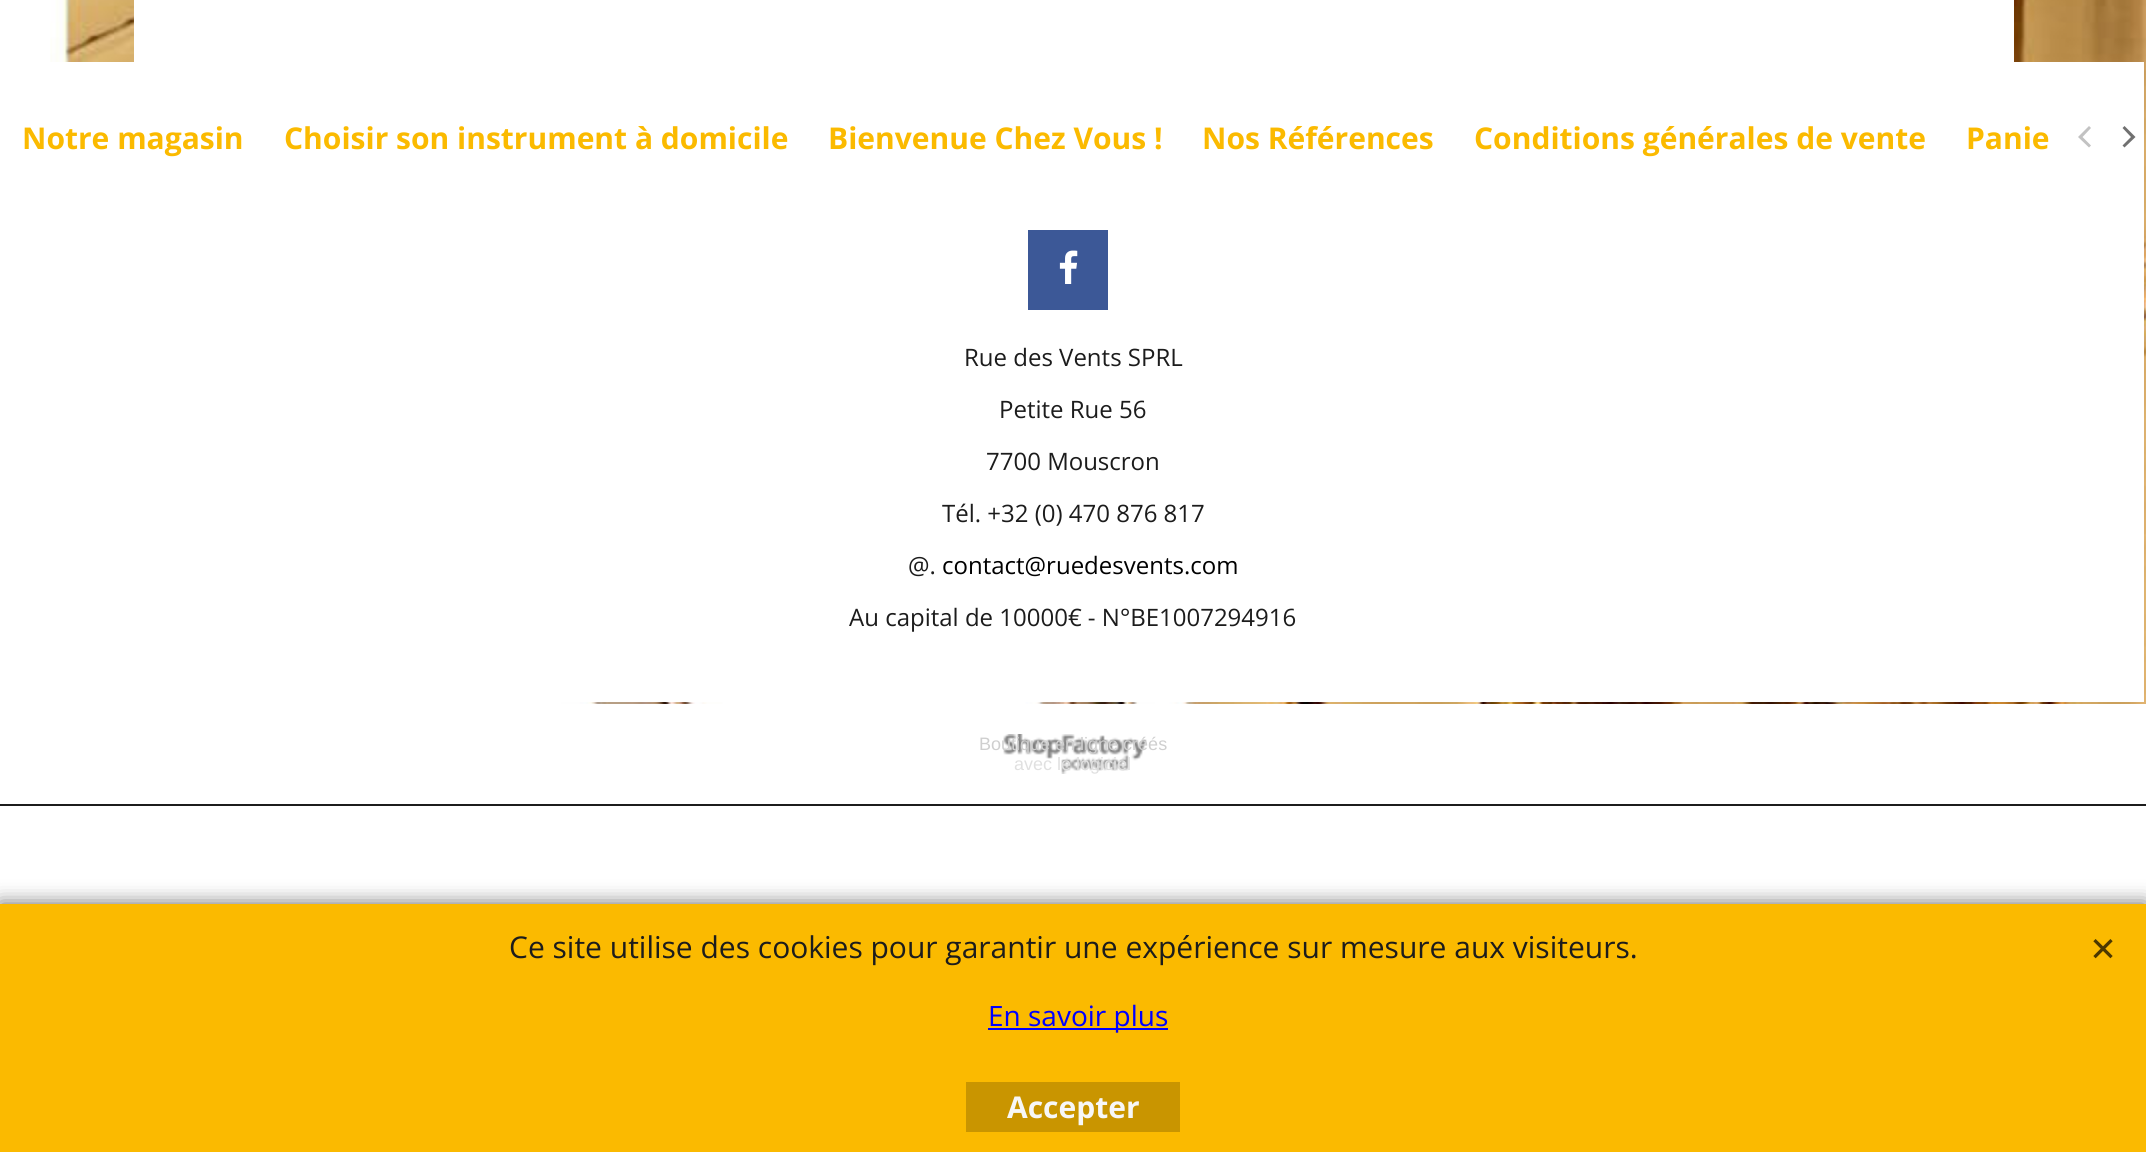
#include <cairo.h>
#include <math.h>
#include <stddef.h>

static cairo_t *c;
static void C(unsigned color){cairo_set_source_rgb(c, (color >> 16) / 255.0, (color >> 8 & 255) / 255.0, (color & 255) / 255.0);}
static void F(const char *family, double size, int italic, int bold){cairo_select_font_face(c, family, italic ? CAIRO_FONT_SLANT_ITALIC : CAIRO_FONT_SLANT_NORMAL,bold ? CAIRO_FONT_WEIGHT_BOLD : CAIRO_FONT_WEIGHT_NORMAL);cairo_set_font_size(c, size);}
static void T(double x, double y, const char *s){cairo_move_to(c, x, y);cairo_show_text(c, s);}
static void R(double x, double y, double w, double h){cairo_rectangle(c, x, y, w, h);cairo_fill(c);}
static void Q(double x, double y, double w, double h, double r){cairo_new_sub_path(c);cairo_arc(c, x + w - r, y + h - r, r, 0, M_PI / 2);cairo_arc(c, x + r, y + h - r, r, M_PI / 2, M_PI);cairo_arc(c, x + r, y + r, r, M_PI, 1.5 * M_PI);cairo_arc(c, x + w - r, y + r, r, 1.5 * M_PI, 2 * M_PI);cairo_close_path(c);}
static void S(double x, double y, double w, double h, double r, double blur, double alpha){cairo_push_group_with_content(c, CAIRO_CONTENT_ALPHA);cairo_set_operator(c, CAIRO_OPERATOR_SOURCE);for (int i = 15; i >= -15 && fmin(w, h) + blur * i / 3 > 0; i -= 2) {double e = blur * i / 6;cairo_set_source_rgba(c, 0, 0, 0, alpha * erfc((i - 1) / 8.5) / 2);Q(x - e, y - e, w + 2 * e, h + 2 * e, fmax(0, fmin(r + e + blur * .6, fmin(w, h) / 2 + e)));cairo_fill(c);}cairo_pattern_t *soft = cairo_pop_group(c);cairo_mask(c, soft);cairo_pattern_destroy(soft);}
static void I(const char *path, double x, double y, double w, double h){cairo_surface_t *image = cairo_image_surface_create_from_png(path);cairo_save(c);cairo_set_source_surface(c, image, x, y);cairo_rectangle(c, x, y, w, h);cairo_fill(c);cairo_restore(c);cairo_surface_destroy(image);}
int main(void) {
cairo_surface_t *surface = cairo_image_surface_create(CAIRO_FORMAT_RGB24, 2146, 1152);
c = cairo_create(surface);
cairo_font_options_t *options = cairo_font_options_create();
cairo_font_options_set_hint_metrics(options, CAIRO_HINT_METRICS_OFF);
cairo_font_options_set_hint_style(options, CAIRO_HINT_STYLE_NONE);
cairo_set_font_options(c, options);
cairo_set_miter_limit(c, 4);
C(0xffffff);
cairo_paint(c);
I("1.png",50,0,2096,704);
C(0xffffff);
R(134,0,1880,62);
R(50,62,2094,640);
F("Open Sans",30,0,1);
C(0xfbba00);
T(22,149,"Notre magasin");
T(284,149,"Choisir son instrument à domicile");
T(828,149,"Bienvenue Chez Vous !");
T(1202,149,"Nos Références");
T(1474,149,"Conditions générales de vente");
T(1966,149,"Panie");
C(0xc2c2c2);
cairo_new_path(c);
cairo_move_to(c,2078,137);
cairo_line_to(c,2089,147.5);
cairo_line_to(c,2091,145.5);
cairo_line_to(c,2082.5,137);
cairo_line_to(c,2091,128);
cairo_line_to(c,2089,126);
cairo_close_path(c);
cairo_fill(c);
C(0x707070);
cairo_new_path(c);
cairo_move_to(c,2135.5,137);
cairo_line_to(c,2124.5,126);
cairo_line_to(c,2122.5,128);
cairo_line_to(c,2131,137);
cairo_line_to(c,2122.5,145.5);
cairo_line_to(c,2124.5,147.5);
cairo_close_path(c);
cairo_fill(c);
C(0x3c5897);
R(1028,230,80,80);
I("2.png",1059,250,19,34);
F("Open Sans",24,0,0);
C(0x1c1c1c);
T(964,366,"Rue des Vents SPRL");
T(999,418,"Petite Rue 56");
T(986,470,"7700 Mouscron");
T(942,522,"Tél. +32 (0) 470 876 817");
T(908,574,"@.");
C(0x000000);
T(942,574,"contact@ruedesvents.com");
C(0x1c1c1c);
T(849,626,"Au capital de 10000€ - N°BE1007294916");
I("3.png",1003,734,144,40);
F("Liberation Sans",18,0,0);
C(0xcfcfcf);
T(979,750,"Boutique en ligne créés");
C(0xe0e0e0);
T(1014,770,"avec le logiciel");
C(0x1c1c1c);
R(0,804,2146,2);
C(0x666666);
S(0,904,2146,248,0,10,1);
C(0xfbba00);
R(0,904,2146,248);
F("Open Sans",30,0,0);
C(0x1c1c1c);
T(509,958,"Ce site utilise des cookies pour garantir une expérience sur mesure aux visiteurs.");
C(0x0000ff);
R(988,1028,180,2);
F("Open Sans",28,0,0);
T(988,1026,"En savoir plus");
I("4.png",2093,939,20,20);
C(0xc99500);
R(966,1082,214,50);
F("Open Sans",30,0,1);
C(0xf7f7f7);
T(1007,1118,"Accepter");
cairo_surface_write_to_png(surface, "o.png");
cairo_font_options_destroy(options);
cairo_destroy(c);
cairo_surface_destroy(surface);
return 0;
}
